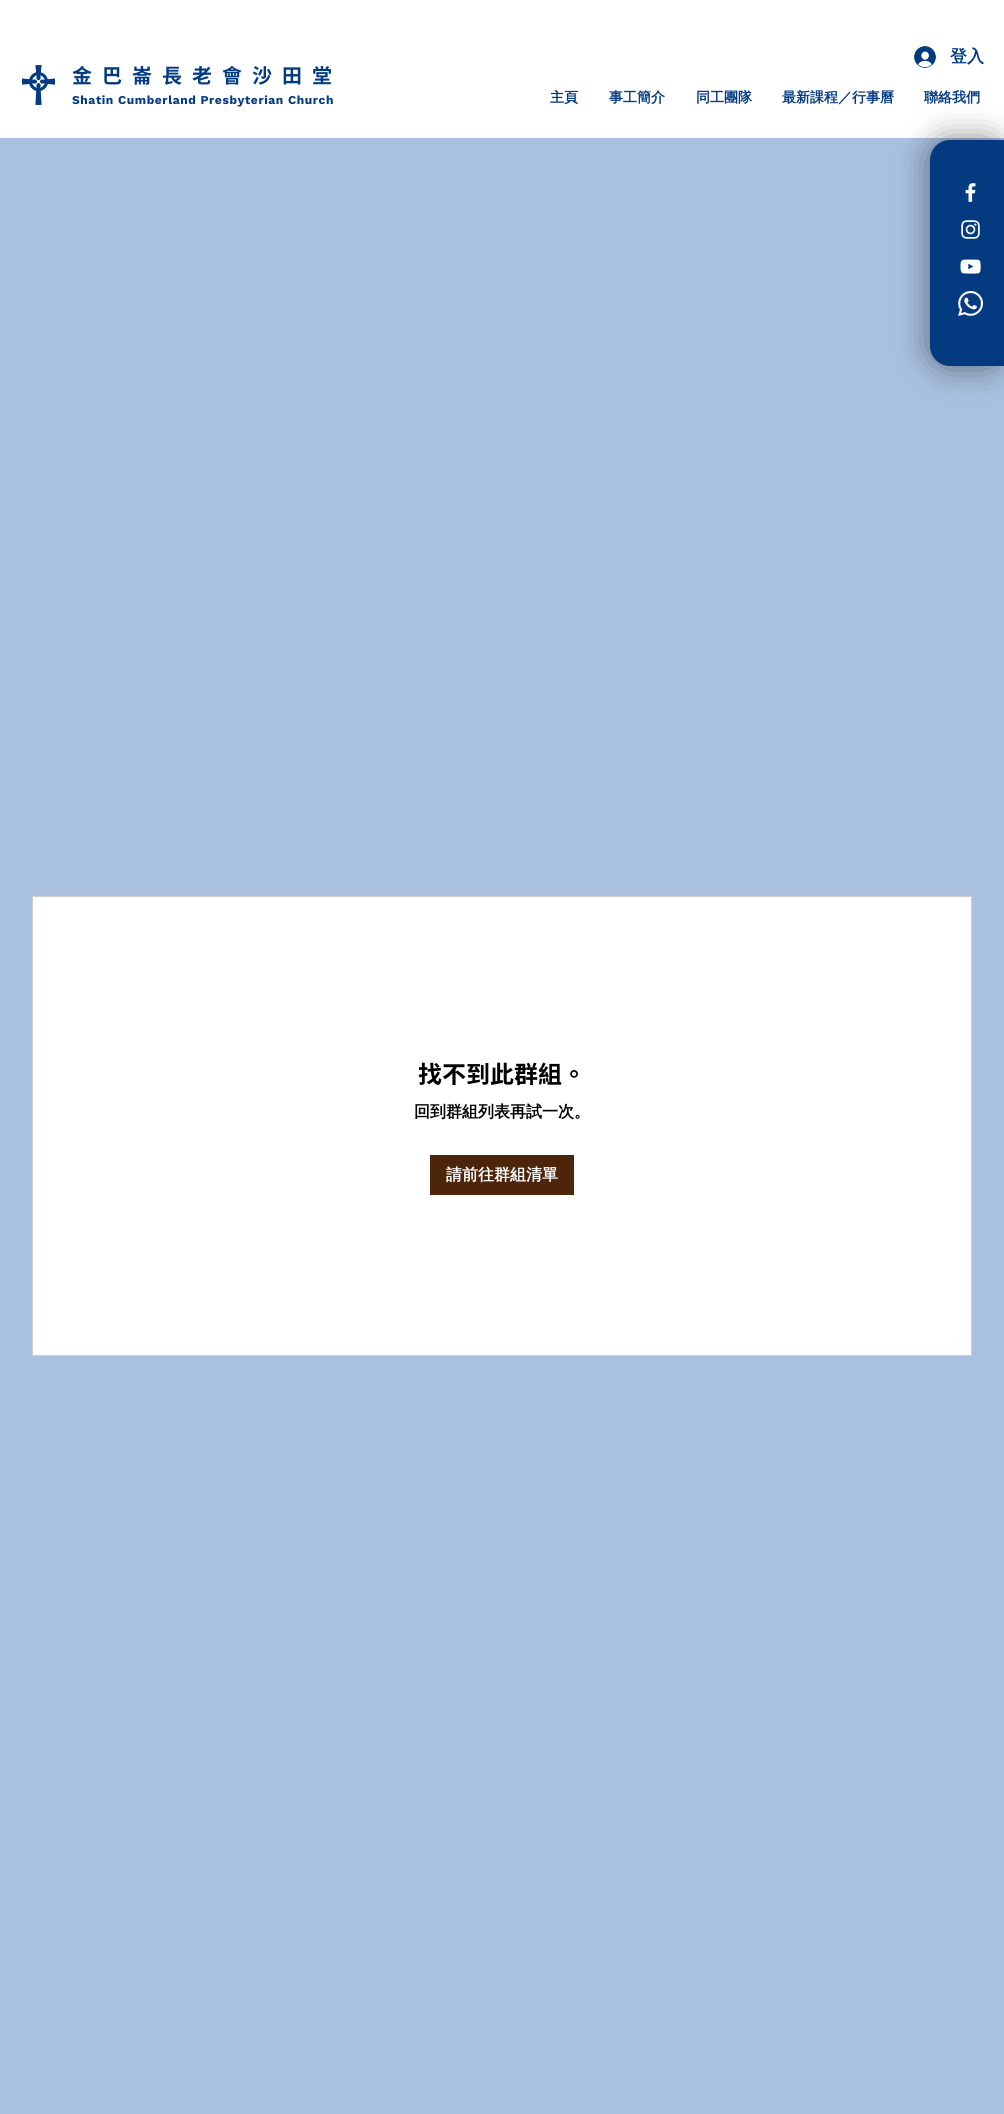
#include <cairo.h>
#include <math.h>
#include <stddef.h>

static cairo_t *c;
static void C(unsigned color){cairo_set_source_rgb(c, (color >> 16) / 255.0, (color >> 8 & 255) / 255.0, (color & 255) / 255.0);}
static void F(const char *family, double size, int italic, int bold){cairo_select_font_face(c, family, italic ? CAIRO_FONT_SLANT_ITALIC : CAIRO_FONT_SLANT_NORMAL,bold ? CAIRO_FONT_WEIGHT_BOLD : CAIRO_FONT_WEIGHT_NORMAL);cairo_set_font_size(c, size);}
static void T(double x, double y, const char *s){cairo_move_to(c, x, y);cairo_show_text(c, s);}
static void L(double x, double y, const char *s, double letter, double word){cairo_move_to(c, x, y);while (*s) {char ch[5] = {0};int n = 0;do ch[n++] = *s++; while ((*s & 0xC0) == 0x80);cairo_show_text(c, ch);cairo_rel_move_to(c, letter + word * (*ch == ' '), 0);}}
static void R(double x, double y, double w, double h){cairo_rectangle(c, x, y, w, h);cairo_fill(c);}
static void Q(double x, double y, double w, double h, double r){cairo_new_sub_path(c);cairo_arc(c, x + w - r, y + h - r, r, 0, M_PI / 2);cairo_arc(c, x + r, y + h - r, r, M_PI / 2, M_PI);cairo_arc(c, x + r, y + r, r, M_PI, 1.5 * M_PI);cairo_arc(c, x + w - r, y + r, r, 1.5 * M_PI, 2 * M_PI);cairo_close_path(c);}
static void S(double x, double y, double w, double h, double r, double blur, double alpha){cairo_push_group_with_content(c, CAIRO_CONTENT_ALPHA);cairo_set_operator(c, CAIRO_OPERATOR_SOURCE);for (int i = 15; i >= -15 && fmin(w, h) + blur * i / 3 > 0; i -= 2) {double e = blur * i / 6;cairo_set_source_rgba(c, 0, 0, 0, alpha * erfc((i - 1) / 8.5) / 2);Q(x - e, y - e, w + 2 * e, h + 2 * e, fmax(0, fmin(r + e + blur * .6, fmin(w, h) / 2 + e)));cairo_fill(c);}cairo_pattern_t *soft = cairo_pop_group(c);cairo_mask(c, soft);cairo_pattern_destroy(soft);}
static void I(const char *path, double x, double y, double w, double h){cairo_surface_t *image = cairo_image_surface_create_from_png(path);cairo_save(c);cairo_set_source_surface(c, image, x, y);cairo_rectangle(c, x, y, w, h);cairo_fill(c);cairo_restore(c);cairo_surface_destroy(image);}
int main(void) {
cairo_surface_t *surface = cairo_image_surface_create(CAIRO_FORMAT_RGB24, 1004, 2114);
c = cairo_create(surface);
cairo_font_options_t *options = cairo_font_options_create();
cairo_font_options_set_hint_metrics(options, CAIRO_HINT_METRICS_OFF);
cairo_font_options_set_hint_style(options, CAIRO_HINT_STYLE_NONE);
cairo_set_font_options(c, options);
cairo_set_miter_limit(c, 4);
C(0xa9c1df);
cairo_paint(c);
C(0xffffff);
R(0,0,1004,138);
I("1.png",22,65,33,40);
F("Noto Sans HK",20,0,1);
C(0x043a80);
L(72,83,"金巴崙長老會沙田堂",10,0);
F("Work Sans",12,0,1);
L(72,104,"Shatin Cumberland Presbyterian Church",.6,0);
I("2.png",914,46,22,22);
F("WenQuanYi Zen Hei",17,0,1);
T(950,62,"登入");
F("WenQuanYi Zen Hei",14,0,1);
T(550,102,"主頁");
T(609,102,"事工簡介");
T(696,102,"同工團隊");
T(782,102,"最新課程／行事曆");
T(924,102,"聯絡我們");
C(0x000000);
S(926,136,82,234,24,15,.4);
C(0x043a80);
cairo_new_path(c);
cairo_move_to(c,950,140);
cairo_line_to(c,1004,140);
cairo_line_to(c,1004,366);
cairo_line_to(c,950,366);
cairo_curve_to(c,939,366,930,357,930,346);
cairo_line_to(c,930,160);
cairo_curve_to(c,930,149,939,140,950,140);
cairo_close_path(c);
cairo_fill(c);
I("3.png",965,183,11,19);
I("4.png",961,220,19,19);
I("5.png",960,259,21,15);
I("6.png",958,291,25,25);
C(0xffffff);
cairo_rectangle(c,32.5,896.5,939,459);
cairo_fill_preserve(c);
C(0xcccccc);
cairo_set_line_width(c,1);
cairo_stroke(c);
F("Noto Sans HK",24,0,1);
C(0x000000);
T(418,1083,"找不到此群組。");
F("WenQuanYi Zen Hei",16,0,1);
T(414,1117,"回到群組列表再試一次。");
C(0x4c250b);
R(430,1155,144,40);
C(0xffffff);
T(446,1180,"請前往群組清單");
cairo_surface_write_to_png(surface, "o.png");
cairo_font_options_destroy(options);
cairo_destroy(c);
cairo_surface_destroy(surface);
return 0;
}
